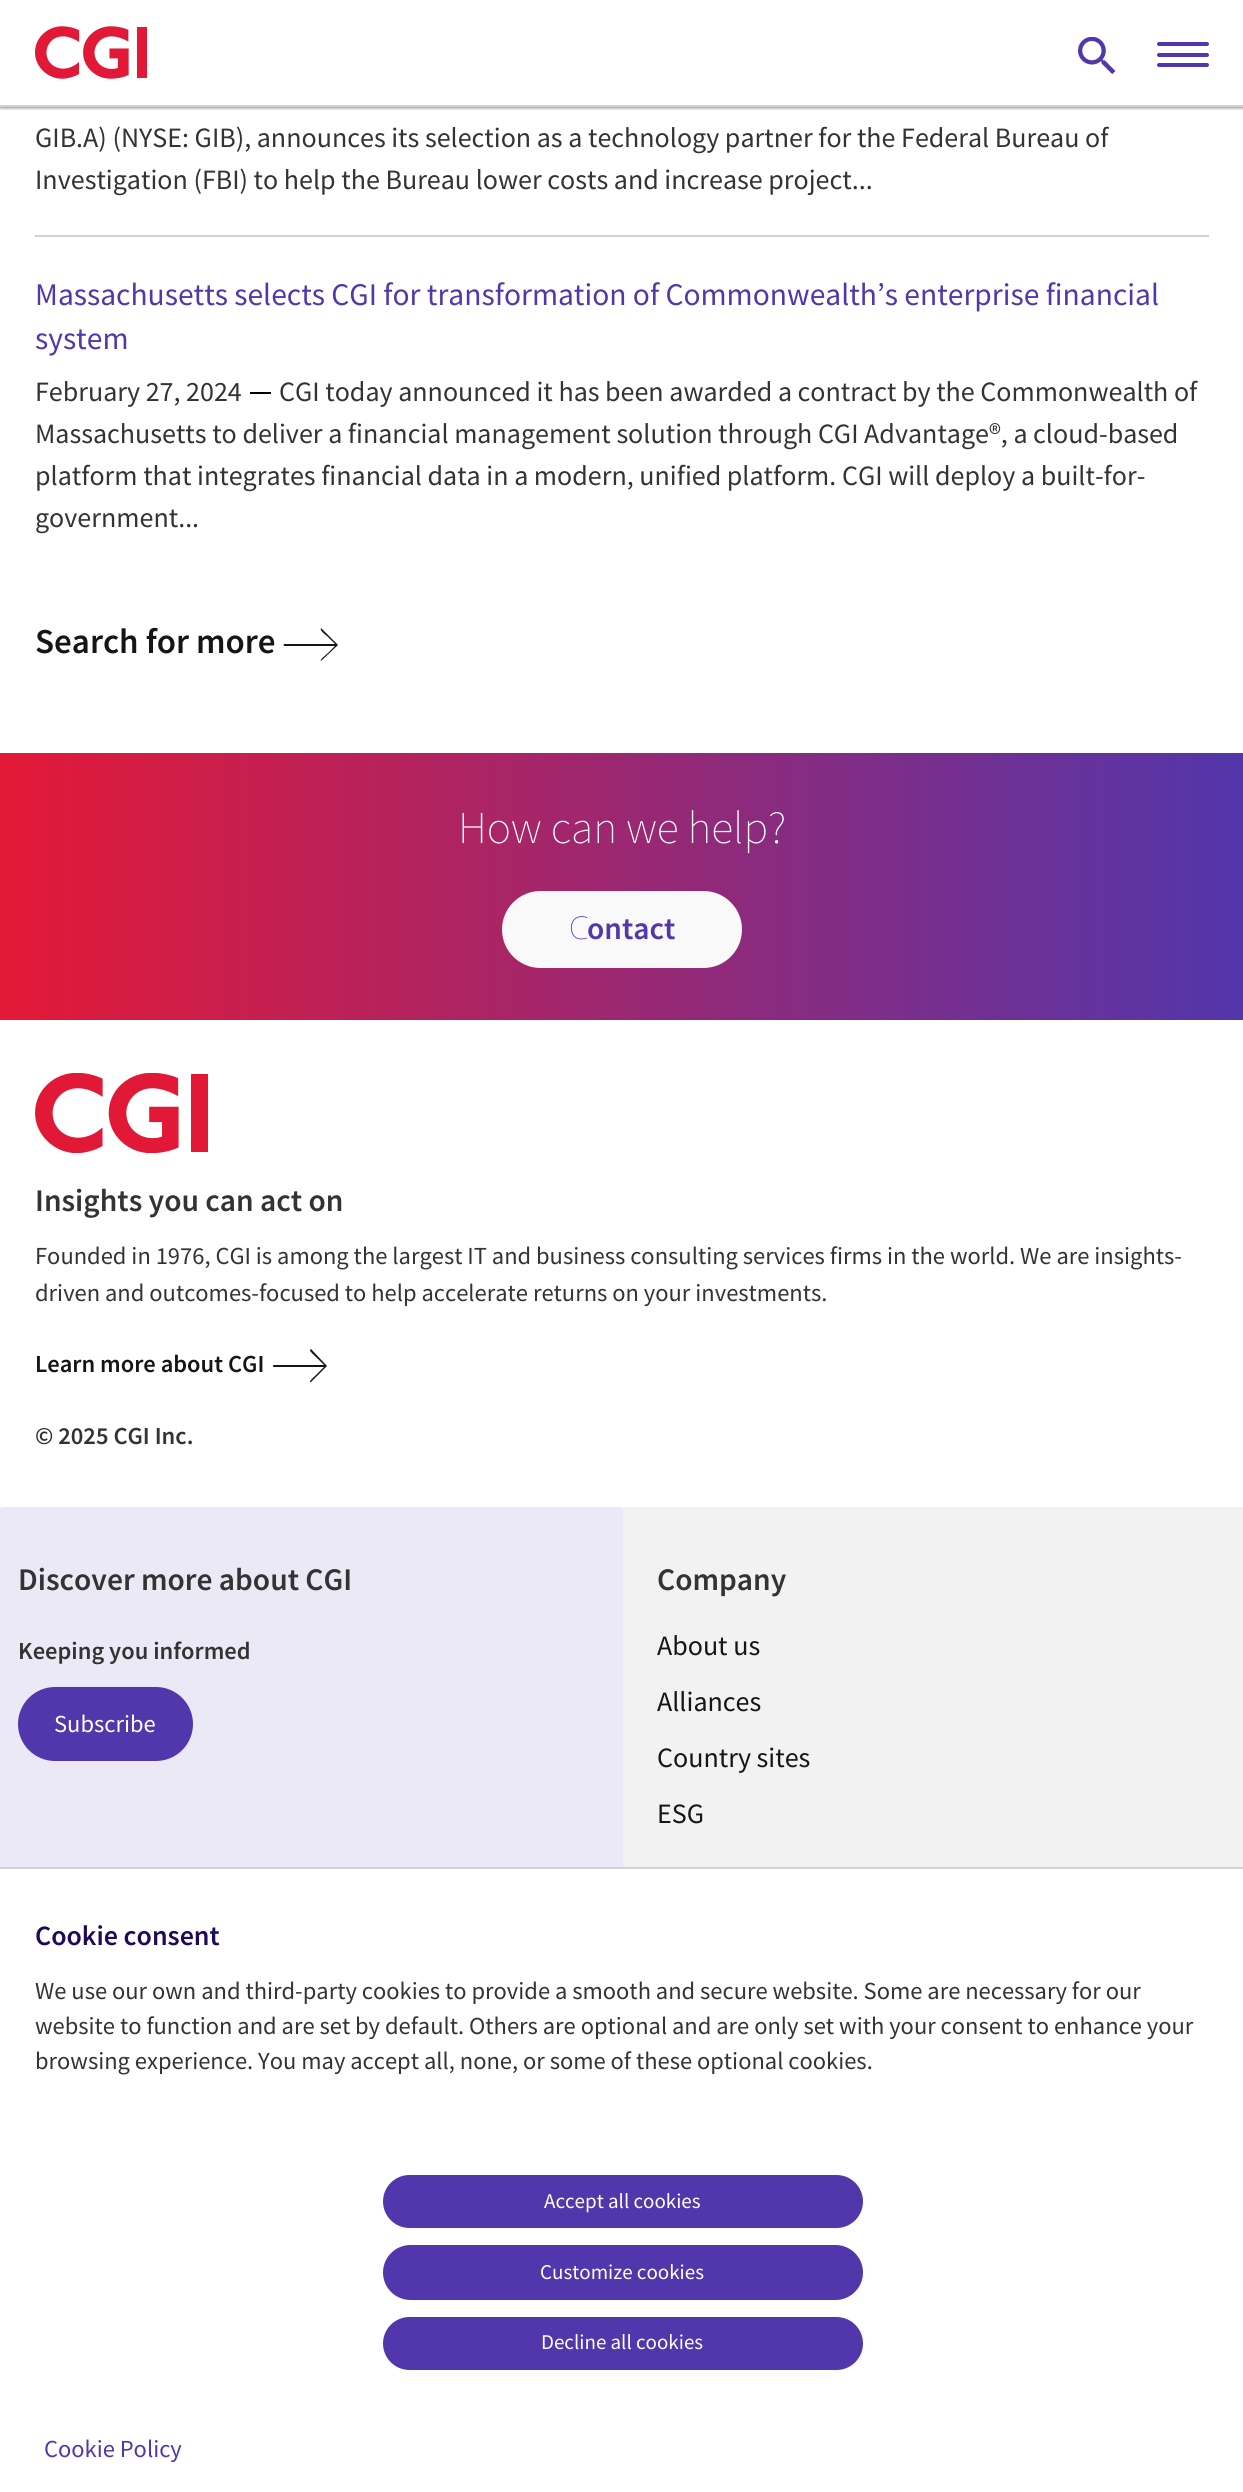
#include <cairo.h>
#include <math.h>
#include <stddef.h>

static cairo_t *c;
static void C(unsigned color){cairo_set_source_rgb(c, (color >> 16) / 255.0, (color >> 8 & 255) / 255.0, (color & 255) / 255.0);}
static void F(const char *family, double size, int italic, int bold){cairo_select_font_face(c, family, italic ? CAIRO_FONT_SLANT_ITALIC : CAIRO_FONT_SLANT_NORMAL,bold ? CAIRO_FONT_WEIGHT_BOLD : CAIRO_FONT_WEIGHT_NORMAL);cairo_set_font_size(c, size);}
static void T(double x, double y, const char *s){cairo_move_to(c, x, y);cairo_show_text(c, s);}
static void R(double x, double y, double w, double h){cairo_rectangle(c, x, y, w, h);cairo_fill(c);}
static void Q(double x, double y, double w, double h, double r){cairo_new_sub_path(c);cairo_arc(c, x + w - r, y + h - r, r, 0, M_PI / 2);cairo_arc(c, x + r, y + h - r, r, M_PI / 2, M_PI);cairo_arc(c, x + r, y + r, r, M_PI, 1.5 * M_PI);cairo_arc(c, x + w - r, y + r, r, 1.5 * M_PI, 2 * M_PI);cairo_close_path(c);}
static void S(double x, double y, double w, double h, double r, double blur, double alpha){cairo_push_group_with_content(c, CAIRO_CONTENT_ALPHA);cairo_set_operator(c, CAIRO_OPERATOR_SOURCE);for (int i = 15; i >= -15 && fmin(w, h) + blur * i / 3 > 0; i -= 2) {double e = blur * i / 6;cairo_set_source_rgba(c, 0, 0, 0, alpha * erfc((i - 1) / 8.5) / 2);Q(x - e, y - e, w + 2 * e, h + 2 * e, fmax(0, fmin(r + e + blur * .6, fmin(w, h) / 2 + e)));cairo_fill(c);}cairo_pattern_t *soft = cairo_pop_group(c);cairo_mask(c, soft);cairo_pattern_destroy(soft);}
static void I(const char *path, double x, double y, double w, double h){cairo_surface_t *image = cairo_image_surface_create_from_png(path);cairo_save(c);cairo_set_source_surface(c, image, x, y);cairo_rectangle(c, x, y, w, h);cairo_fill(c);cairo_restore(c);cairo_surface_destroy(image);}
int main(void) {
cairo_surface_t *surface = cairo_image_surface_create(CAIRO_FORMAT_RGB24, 1243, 2492);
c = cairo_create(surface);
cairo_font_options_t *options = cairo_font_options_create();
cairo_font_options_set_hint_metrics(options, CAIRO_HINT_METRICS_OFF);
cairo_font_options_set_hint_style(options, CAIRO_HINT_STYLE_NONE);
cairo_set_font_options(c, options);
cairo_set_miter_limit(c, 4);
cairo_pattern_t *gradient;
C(0xffffff);
cairo_paint(c);
C(0x000000);
S(0,4,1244,103,0,1,.25);
S(0,2,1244,107,0,1,.25);
C(0xffffff);
R(0,0,1243,105);
C(0xd2d2d2);
R(0,105,1243,2);
I("1.png",35,26,112,53);
I("2.png",1078,37,38,38);
C(0x5236ab);
Q(1157,63,52,4,2);
cairo_fill(c);
Q(1157,42,52,4,2);
cairo_fill(c);
Q(1157,53,52,4,2);
cairo_fill(c);
C(0xd2d2d2);
R(35,235,1174,2);
F("Source Sans Pro",28,0,0);
C(0x333333);
T(35,147,"GIB.A) (NYSE: GIB), announces its selection as a technology partner for the Federal Bureau of");
T(35,189,"Investigation (FBI) to help the Bureau lower costs and increase project...");
F("Source Sans Pro",31.5,0,0);
C(0x5236ab);
T(35,305,"Massachusetts selects CGI for transformation of Commonwealth’s enterprise financial");
T(35,349,"system");
C(0x000000);
R(250,392,21,2);
F("Source Sans Pro",28,0,0);
C(0x333333);
T(279,401,"CGI today announced it has been awarded a contract by the Commonwealth of");
T(35,443,"Massachusetts to deliver a financial management solution through CGI Advantage®, a cloud-based");
T(35,485,"platform that integrates financial data in a modern, unified platform. CGI will deploy a built-for-");
T(35,527,"government...");
T(35,401,"February 27, 2024");
F("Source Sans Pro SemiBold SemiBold",35,0,0);
C(0x151515);
T(35,653,"Search for more");
cairo_new_path(c);
cairo_move_to(c,338,645);
cairo_line_to(c,321,628);
cairo_line_to(c,321,629);
cairo_curve_to(c,319,630,327,636,328,637);
cairo_line_to(c,335,644);
cairo_line_to(c,284,644);
cairo_curve_to(c,283,645,284,646,284,646);
cairo_line_to(c,335,646);
cairo_line_to(c,328,653);
cairo_curve_to(c,327,654,319,660,321,661);
cairo_close_path(c);
cairo_fill(c);
gradient = cairo_pattern_create_linear(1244,886,0,886);
cairo_pattern_add_color_stop_rgba(gradient,0,0.322,0.212,0.671,1);
cairo_pattern_add_color_stop_rgba(gradient,1,0.894,0.098,0.216,1);
cairo_set_source(c,gradient);
cairo_pattern_destroy(gradient);
R(0,753,1243,267);
F("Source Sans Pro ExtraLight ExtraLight",45.5,0,0);
C(0xffffff);
T(458,843,"How can we help?");
C(0xf9f9f9);
Q(507.5,896.5,229,66,33);
cairo_fill_preserve(c);
cairo_set_line_width(c,11);
cairo_stroke(c);
F("Noto Sans Thin",31.5,0,0);
C(0x5236ab);
T(569,939,"C");
F("Source Sans Pro SemiBold SemiBold",31.5,0,0);
T(587,939,"ontact");
C(0xf2f2f2);
R(0,1507,1243,360);
I("3.png",35,1073,173,80);
C(0x333333);
T(35,1211,"Insights you can act on");
F("Source Sans Pro",24.5,0,0);
T(35,1264,"Founded in 1976, CGI is among the largest IT and business consulting services firms in the world. We are insights-");
T(35,1301,"driven and outcomes-focused to help accelerate returns on your investments.");
F("Source Sans Pro SemiBold SemiBold",24.5,0,0);
C(0x151515);
T(35,1372,"Learn more about CGI");
cairo_new_path(c);
cairo_move_to(c,327,1366);
cairo_line_to(c,311,1349);
cairo_line_to(c,310,1350);
cairo_curve_to(c,309,1351,316,1357,317,1358);
cairo_line_to(c,324,1365);
cairo_line_to(c,274,1365);
cairo_line_to(c,273,1365);
cairo_curve_to(c,273,1366,273,1367,274,1367);
cairo_line_to(c,324,1367);
cairo_line_to(c,317,1374);
cairo_curve_to(c,316,1375,309,1381,310,1382);
cairo_line_to(c,311,1382);
cairo_close_path(c);
cairo_fill(c);
C(0x333333);
T(35,1444,"© 2025 CGI Inc.");
C(0xece9f6);
Q(0,1507,623,555,4);
cairo_fill(c);
F("Source Sans Pro SemiBold SemiBold",31.5,0,0);
C(0x333333);
T(18,1590,"Discover more about CGI");
F("Source Sans Pro SemiBold SemiBold",24.5,0,0);
T(18,1659,"Keeping you informed");
C(0x5236ab);
Q(23.5,1692.5,164,63,31.5);
cairo_fill_preserve(c);
cairo_stroke(c);
F("Source Sans Pro",24.5,0,0);
C(0xffffff);
T(54,1732,"Subscribe");
F("Source Sans Pro SemiBold SemiBold",31.5,0,0);
C(0x333333);
T(657,1590,"Company");
F("Source Sans Pro",28,0,0);
C(0x151515);
T(657,1655,"About us");
T(657,1711,"Alliances");
T(657,1767,"Country sites");
T(657,1823,"ESG");
C(0xd2d2d2);
R(0,1867,1243,2);
C(0xffffff);
R(0,1869,623,193);
F("Source Sans Pro SemiBold SemiBold",28,0,0);
C(0x200a58);
T(35,1945,"Cookie consent");
F("Source Sans Pro",24.5,0,0);
C(0x333333);
T(35,1999,"We use our own and third-party cookies to provide a smooth and secure website. Some are necessary for our");
T(35,2034,"website to function and are set by default. Others are optional and are only set with your consent to enhance your");
T(35,2069,"browsing experience. You may accept all, none, or some of these optional cookies.");
C(0x5236ab);
Q(385,2177,476,49,24.5);
cairo_fill_preserve(c);
cairo_set_line_width(c,4);
cairo_stroke(c);
F("Source Sans Pro",21,0,0);
C(0xffffff);
T(544,2208,"Accept all cookies");
C(0x5236ab);
Q(385,2247,476,51,25.5);
cairo_fill_preserve(c);
cairo_stroke(c);
C(0xffffff);
T(540,2279,"Customize cookies");
C(0x5236ab);
Q(385,2319,476,49,24.5);
cairo_fill_preserve(c);
cairo_stroke(c);
C(0xffffff);
T(541,2349,"Decline all cookies");
F("Source Sans Pro",24.5,0,0);
C(0x5236ab);
T(44,2457,"Cookie Policy");
cairo_surface_write_to_png(surface, "o.png");
cairo_font_options_destroy(options);
cairo_destroy(c);
cairo_surface_destroy(surface);
return 0;
}
